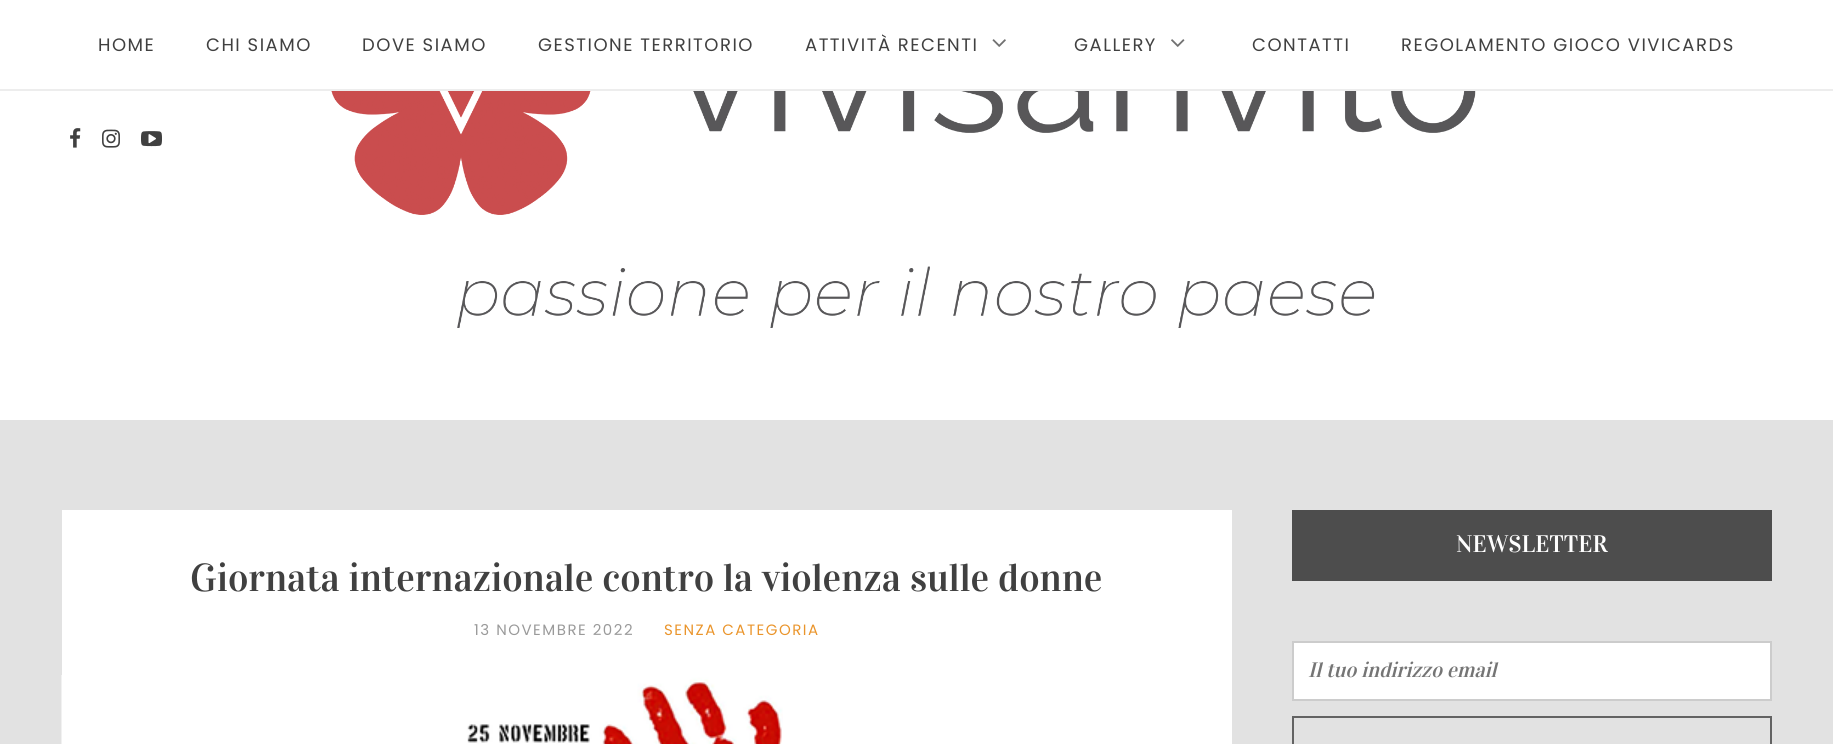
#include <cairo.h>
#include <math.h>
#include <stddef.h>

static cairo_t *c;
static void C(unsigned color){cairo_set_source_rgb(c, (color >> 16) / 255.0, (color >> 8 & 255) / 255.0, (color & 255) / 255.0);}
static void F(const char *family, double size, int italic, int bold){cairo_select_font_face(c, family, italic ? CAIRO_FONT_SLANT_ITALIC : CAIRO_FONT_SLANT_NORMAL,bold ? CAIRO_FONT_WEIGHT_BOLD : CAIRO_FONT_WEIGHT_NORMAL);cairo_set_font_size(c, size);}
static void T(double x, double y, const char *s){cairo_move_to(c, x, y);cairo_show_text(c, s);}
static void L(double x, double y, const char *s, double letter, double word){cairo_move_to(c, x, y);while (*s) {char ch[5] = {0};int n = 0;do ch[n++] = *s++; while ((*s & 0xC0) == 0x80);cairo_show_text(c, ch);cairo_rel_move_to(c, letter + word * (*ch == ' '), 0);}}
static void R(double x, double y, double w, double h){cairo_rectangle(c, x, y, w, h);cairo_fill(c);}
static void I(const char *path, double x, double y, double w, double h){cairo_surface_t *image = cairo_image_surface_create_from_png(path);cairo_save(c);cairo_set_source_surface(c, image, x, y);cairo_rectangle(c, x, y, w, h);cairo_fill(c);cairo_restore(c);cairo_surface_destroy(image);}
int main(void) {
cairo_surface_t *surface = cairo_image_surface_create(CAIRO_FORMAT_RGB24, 1833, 744);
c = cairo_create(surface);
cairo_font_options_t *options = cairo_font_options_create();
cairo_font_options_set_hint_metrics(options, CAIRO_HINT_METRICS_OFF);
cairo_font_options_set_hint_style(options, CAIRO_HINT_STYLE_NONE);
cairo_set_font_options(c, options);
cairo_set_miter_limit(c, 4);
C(0xe2e2e2);
cairo_paint(c);
C(0xffffff);
R(0,0,1833,89);
C(0xededed);
R(0,89,1833,2);
F("Poppins",18,0,0);
C(0x404040);
L(98,51,"HOME",1.5,0);
L(206,51,"CHI SIAMO",1.5,0);
L(362,51,"DOVE SIAMO",1.5,0);
L(538,51,"GESTIONE TERRITORIO",1.5,0);
L(805,51,"ATTIVITÀ RECENTI",1.5,0);
I("1.png",992,39,14,8);
L(1074,51,"GALLERY",1.5,0);
I("2.png",1171,39,14,8);
L(1252,51,"CONTATTI",1.5,0);
L(1401,51,"REGOLAMENTO GIOCO VIVICARDS",1.5,0);
C(0xffffff);
R(0,91,1833,329);
I("3.png",70,128,11,20);
I("4.png",102,129,18,19);
I("5.png",141,131,21,16);
I("6.png",331,91,1145,237);
R(62,510,1170,234);
F("Vidaloka",39,0,0);
C(0x404040);
T(190,591,"Giornata internazionale contro la violenza sulle donne");
F("Poppins",15,0,0);
C(0x9a9a9a);
L(474,635,"13 NOVEMBRE 2022",1.5,0);
C(0xea952c);
L(664,635,"SENZA CATEGORIA",1.5,0);
I("7.png",61,675,722,69);
C(0x4d4d4d);
R(1292,510,480,71);
F("Vidaloka",24,0,0);
C(0xffffff);
T(1456,552,"NEWSLETTER");
cairo_rectangle(c,1293,642,478,58);
cairo_fill_preserve(c);
C(0xcccccc);
cairo_stroke(c);
F("Vidaloka",21,1,0);
C(0x757575);
T(1308,677,"Il tuo indirizzo email");
cairo_rectangle(c,1293,717,478,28);
C(0x636363);
cairo_stroke(c);
cairo_surface_write_to_png(surface, "o.png");
cairo_font_options_destroy(options);
cairo_destroy(c);
cairo_surface_destroy(surface);
return 0;
}
